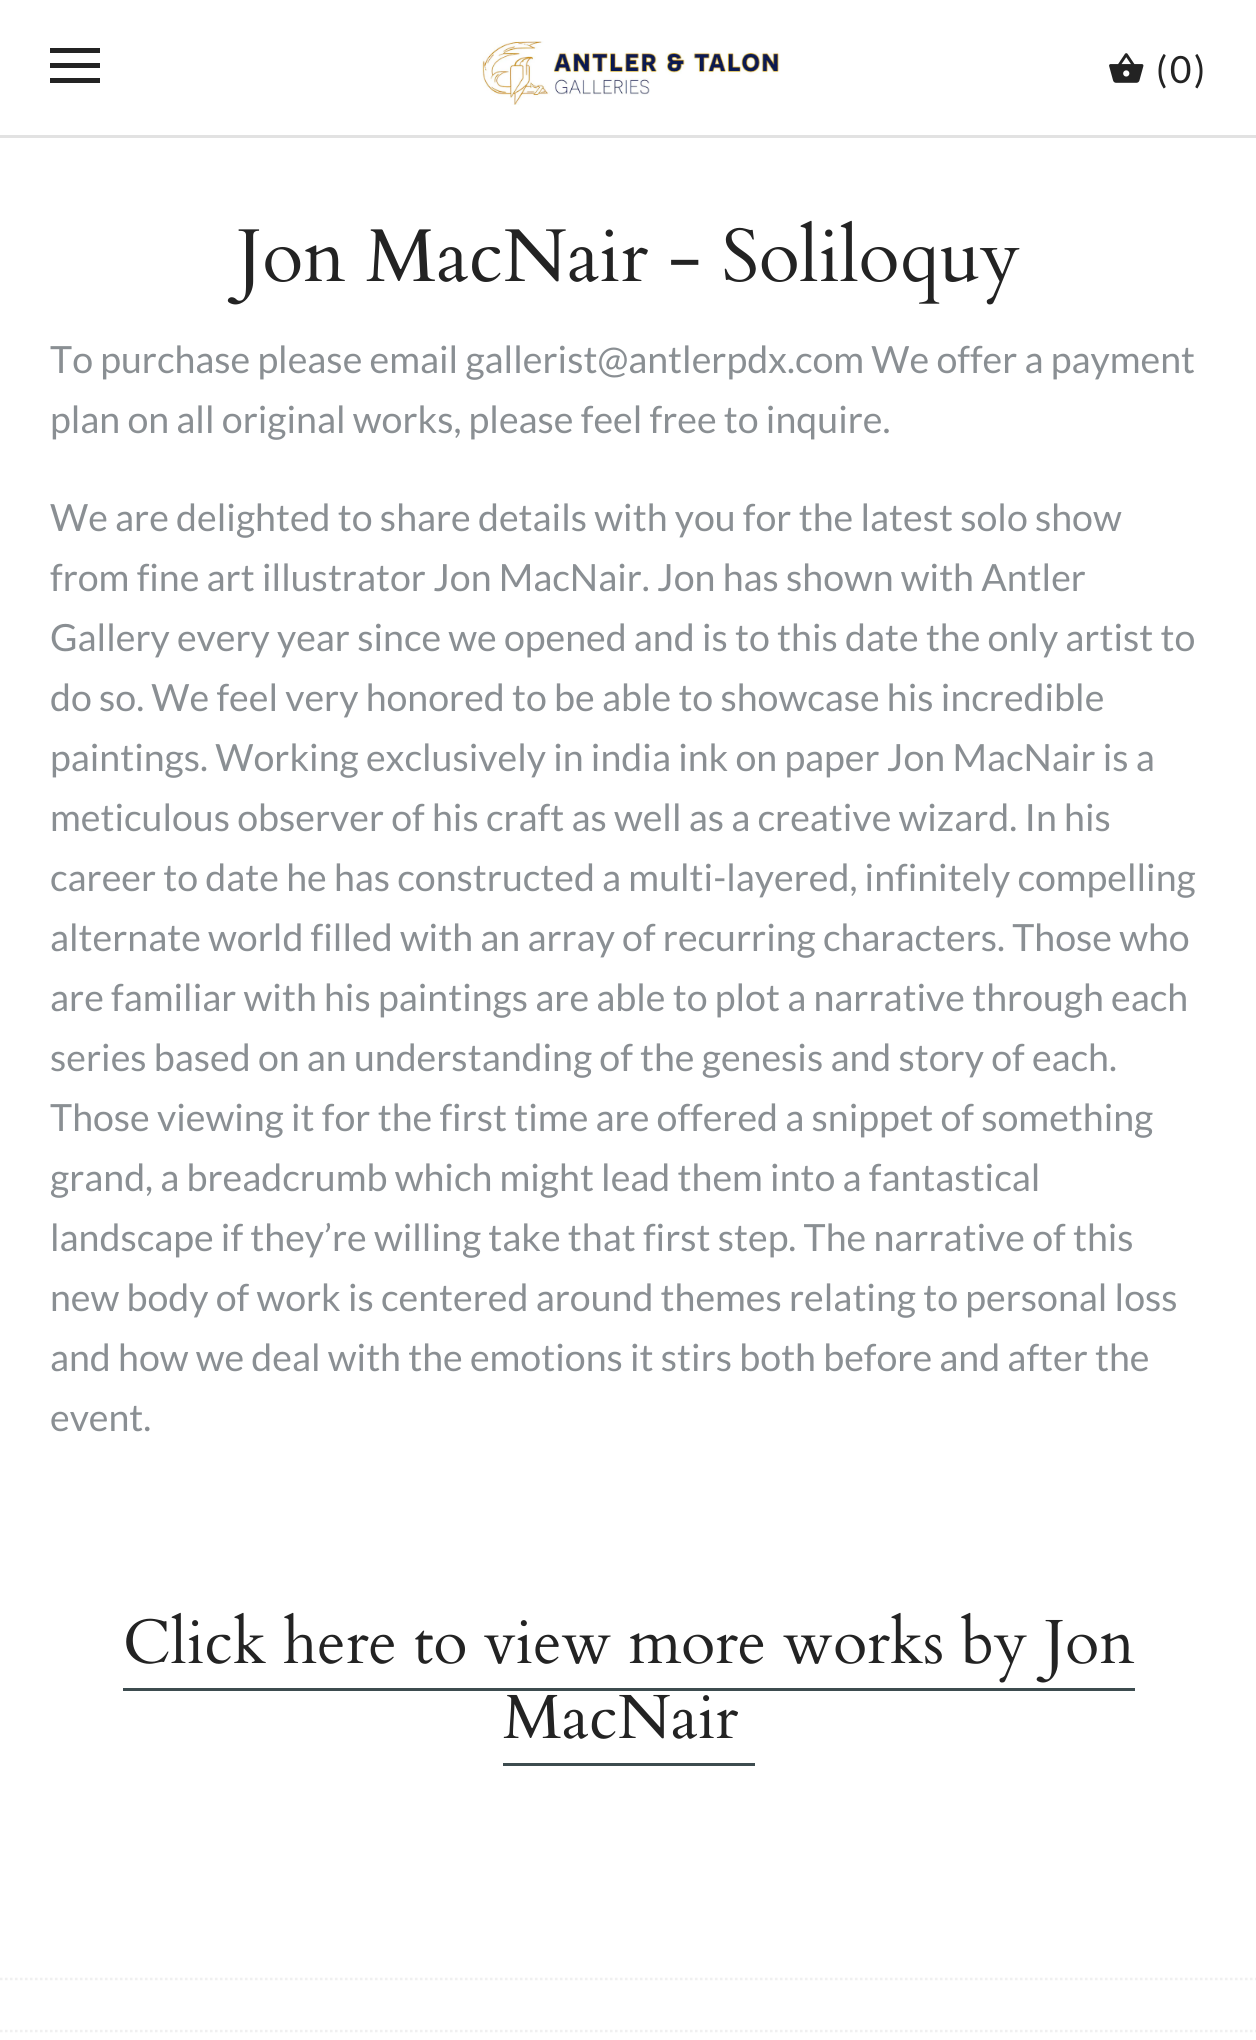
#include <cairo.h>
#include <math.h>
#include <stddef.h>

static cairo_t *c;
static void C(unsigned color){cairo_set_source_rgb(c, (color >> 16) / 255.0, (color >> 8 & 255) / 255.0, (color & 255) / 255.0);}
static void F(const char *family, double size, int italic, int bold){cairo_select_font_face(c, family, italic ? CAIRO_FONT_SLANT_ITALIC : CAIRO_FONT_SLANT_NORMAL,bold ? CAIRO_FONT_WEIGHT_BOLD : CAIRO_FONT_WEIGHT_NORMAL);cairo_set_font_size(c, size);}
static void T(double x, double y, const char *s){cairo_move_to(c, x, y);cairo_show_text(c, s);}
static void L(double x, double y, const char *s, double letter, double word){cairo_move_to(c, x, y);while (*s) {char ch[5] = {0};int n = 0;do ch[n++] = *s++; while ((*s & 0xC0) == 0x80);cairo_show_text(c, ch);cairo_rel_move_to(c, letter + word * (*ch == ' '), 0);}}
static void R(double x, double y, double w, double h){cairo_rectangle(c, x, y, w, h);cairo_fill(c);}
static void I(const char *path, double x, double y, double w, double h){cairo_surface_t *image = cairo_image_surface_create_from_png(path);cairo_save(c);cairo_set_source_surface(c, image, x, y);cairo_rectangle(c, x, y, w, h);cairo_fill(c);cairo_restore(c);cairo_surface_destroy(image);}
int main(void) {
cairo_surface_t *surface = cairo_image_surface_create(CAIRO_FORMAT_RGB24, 1256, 2040);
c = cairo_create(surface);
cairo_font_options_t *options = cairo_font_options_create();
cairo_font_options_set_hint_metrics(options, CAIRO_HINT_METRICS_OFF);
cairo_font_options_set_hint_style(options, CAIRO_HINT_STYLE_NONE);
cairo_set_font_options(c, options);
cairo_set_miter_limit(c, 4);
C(0xffffff);
cairo_paint(c);
C(0xe2e2e2);
R(0,135,1256,3);
C(0x232323);
R(50,48,50,5);
R(50,63,50,5);
R(50,78,50,5);
I("1.png",481,41,299,64);
I("2.png",1109,53,35,30);
F("Lato",37.5,0,0);
L(1156,83,"(0)",2.5,0);
F("Cardo",75,0,0);
T(237,281,"Jon MacNair - Soliloquy");
F("Lato",37.5,0,0);
C(0x8a8f93);
T(50,373,"To purchase please email gallerist@antlerpdx.com We offer a payment");
T(50,433,"plan on all original works, please feel free to inquire.");
T(50,531,"We are delighted to share details with you for the latest solo show");
T(50,591,"from fine art illustrator Jon MacNair. Jon has shown with Antler");
T(50,651,"Gallery every year since we opened and is to this date the only artist to");
T(50,711,"do so. We feel very honored to be able to showcase his incredible");
T(50,771,"paintings. Working exclusively in india ink on paper Jon MacNair is a");
T(50,831,"meticulous observer of his craft as well as a creative wizard. In his");
T(50,891,"career to date he has constructed a multi-layered, infinitely compelling");
T(50,951,"alternate world filled with an array of recurring characters. Those who");
T(50,1011,"are familiar with his paintings are able to plot a narrative through each");
T(50,1071,"series based on an understanding of the genesis and story of each.");
T(50,1131,"Those viewing it for the first time are offered a snippet of something");
T(50,1191,"grand, a breadcrumb which might lead them into a fantastical");
T(50,1251,"landscape if they’re willing take that first step. The narrative of this");
T(50,1311,"new body of work is centered around themes relating to personal loss");
T(50,1371,"and how we deal with the emotions it stirs both before and after the");
T(50,1431,"event.");
F("Cardo",62.5,0,0);
C(0x232323);
T(123,1663,"Click here to view more works by Jon");
T(503,1738,"MacNair");
C(0x3d4c4f);
R(123,1688,1012,3);
R(503,1763,252,3);
cairo_new_path(c);
cairo_move_to(c,0,1979);
cairo_line_to(c,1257.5,1979);
C(0xf0f0f0);
cairo_set_line_width(c,2.5);
cairo_set_dash(c,(double[]){2.5,2.5},2,0);
cairo_stroke(c);
cairo_new_path(c);
cairo_move_to(c,0,2031);
cairo_line_to(c,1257.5,2031);
cairo_stroke(c);
cairo_surface_write_to_png(surface, "o.png");
cairo_font_options_destroy(options);
cairo_destroy(c);
cairo_surface_destroy(surface);
return 0;
}
